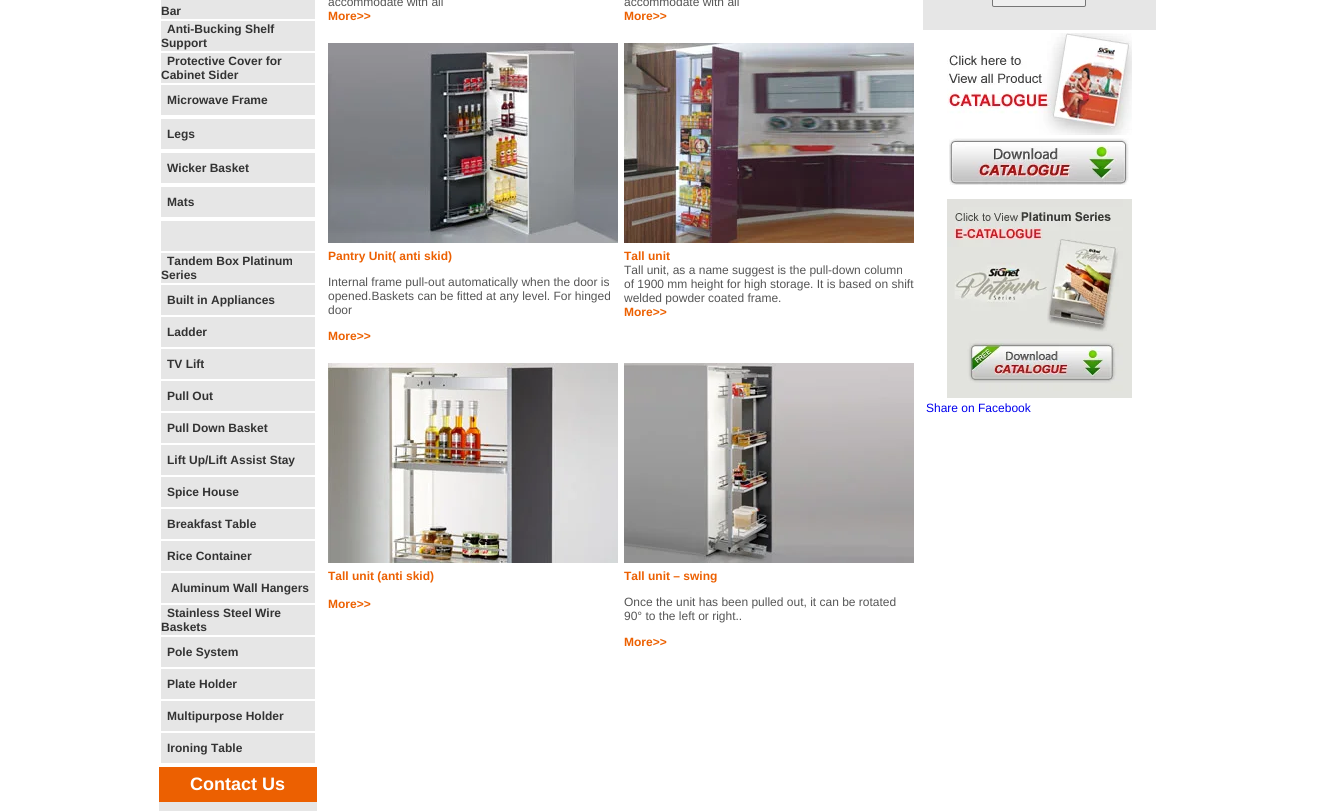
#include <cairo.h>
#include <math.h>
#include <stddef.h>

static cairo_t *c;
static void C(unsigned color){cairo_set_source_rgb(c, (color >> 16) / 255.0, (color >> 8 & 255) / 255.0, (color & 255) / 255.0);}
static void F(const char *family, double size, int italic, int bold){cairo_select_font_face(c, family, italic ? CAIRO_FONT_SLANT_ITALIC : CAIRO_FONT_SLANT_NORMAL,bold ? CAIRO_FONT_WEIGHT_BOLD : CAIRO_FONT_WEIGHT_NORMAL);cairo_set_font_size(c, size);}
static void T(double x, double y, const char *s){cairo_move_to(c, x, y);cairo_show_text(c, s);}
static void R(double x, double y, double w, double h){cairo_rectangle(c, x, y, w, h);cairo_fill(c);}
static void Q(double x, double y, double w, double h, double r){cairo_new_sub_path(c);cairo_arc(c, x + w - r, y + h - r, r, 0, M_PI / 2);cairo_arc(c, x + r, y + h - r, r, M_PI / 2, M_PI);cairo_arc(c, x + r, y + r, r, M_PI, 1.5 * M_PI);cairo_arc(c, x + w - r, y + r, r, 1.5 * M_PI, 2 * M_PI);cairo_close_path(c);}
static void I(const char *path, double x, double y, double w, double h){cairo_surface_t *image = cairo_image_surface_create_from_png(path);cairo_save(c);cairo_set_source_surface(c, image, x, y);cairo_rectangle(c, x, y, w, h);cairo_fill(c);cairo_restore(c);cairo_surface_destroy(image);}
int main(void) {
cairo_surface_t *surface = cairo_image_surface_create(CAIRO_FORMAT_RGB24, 1317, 811);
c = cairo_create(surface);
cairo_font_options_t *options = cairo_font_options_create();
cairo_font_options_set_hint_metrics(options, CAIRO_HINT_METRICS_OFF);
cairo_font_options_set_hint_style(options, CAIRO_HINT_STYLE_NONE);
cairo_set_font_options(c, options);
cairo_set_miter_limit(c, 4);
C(0xffffff);
cairo_paint(c);
C(0xe6e6e6);
R(161,0,154,19);
F("Liberation Sans",12,0,1);
C(0x333333);
T(161,15,"Bar");
C(0xe6e6e6);
R(161,21,154,30);
C(0x333333);
T(167,33,"Anti-Bucking Shelf");
T(161,47,"Support");
C(0xe6e6e6);
R(161,53,154,30);
C(0x333333);
T(167,65,"Protective Cover for");
T(161,79,"Cabinet Sider");
C(0xe6e6e6);
R(161,85,154,30);
C(0x333333);
T(167,104,"Microwave Frame");
C(0xe6e6e6);
R(161,119,154,30);
C(0x333333);
T(167,138,"Legs");
C(0xe6e6e6);
R(161,153,154,30);
C(0x333333);
T(167,172,"Wicker Basket");
C(0xe6e6e6);
R(161,187,154,30);
C(0x333333);
T(167,206,"Mats");
C(0xe6e6e6);
R(161,221,154,30);
R(161,253,154,30);
C(0x333333);
T(167,265,"Tandem Box Platinum");
T(161,279,"Series");
C(0xe6e6e6);
R(161,285,154,30);
C(0x333333);
T(167,304,"Built in Appliances");
C(0xe6e6e6);
R(161,317,154,30);
C(0x333333);
T(167,336,"Ladder");
C(0xe6e6e6);
R(161,349,154,30);
C(0x333333);
T(167,368,"TV Lift");
C(0xe6e6e6);
R(161,381,154,30);
C(0x333333);
T(167,400,"Pull Out");
C(0xe6e6e6);
R(161,413,154,30);
C(0x333333);
T(167,432,"Pull Down Basket");
C(0xe6e6e6);
R(161,445,154,30);
C(0x333333);
T(167,464,"Lift Up/Lift Assist Stay");
C(0xe6e6e6);
R(161,477,154,30);
C(0x333333);
T(167,496,"Spice House");
C(0xe6e6e6);
R(161,509,154,30);
C(0x333333);
T(167,528,"Breakfast Table");
C(0xe6e6e6);
R(161,541,154,30);
C(0x333333);
T(167,560,"Rice Container");
C(0xe6e6e6);
R(161,573,154,30);
C(0x333333);
T(171,592,"Aluminum Wall Hangers");
C(0xe6e6e6);
R(161,605,154,30);
C(0x333333);
T(167,617,"Stainless Steel Wire");
T(161,631,"Baskets");
C(0xe6e6e6);
R(161,637,154,30);
C(0x333333);
T(167,656,"Pole System");
C(0xe6e6e6);
R(161,669,154,30);
C(0x333333);
T(167,688,"Plate Holder");
C(0xe6e6e6);
R(161,701,154,30);
C(0x333333);
T(167,720,"Multipurpose Holder");
C(0xe6e6e6);
R(161,733,154,30);
C(0x333333);
T(167,752,"Ironing Table");
C(0xec6001);
R(159,767,158,35);
F("Liberation Sans",18,0,1);
C(0xffffff);
T(190,790,"Contact Us");
C(0xe6e6e6);
R(159,802,158,9);
F("Liberation Sans",12,0,0);
C(0x555555);
T(328,6,"accommodate with all");
F("Liberation Sans",12,0,1);
C(0xec6001);
T(328,20,"More>>");
F("Liberation Sans",12,0,0);
C(0x555555);
T(624,6,"accommodate with all");
F("Liberation Sans",12,0,1);
C(0xec6001);
T(624,20,"More>>");
I("1.png",328,43,290,200);
T(328,260,"Pantry Unit( anti skid)");
F("Liberation Sans",12,0,0);
C(0x555555);
T(328,286,"Internal frame pull-out automatically when the door is");
T(328,300,"opened.Baskets can be fitted at any level. For hinged");
T(328,314,"door");
F("Liberation Sans",12,0,1);
C(0xec6001);
T(328,340,"More>>");
I("2.png",624,43,290,200);
T(624,260,"Tall unit");
F("Liberation Sans",12,0,0);
C(0x555555);
T(624,274,"Tall unit, as a name suggest is the pull-down column");
T(624,288,"of 1900 mm height for high storage. It is based on shift");
T(624,302,"welded powder coated frame.");
F("Liberation Sans",12,0,1);
C(0xec6001);
T(624,316,"More>>");
I("3.png",328,363,290,200);
T(328,580,"Tall unit (anti skid)");
T(328,608,"More>>");
I("4.png",624,363,290,200);
T(624,580,"Tall unit – swing");
F("Liberation Sans",12,0,0);
C(0x555555);
T(624,606,"Once the unit has been pulled out, it can be rotated");
T(624,620,"90° to the left or right..");
F("Liberation Sans",12,0,1);
C(0xec6001);
T(624,646,"More>>");
C(0xe6e6e6);
R(923,0,233,30);
C(0xefefef);
Q(992.5,-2.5,93,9,1.5);
cairo_fill_preserve(c);
C(0x767676);
cairo_set_line_width(c,1);
cairo_stroke(c);
I("5.png",947,33,185,102);
I("6.png",949,138,180,47);
I("7.png",947,199,185,199);
F("Liberation Sans",12,0,0);
C(0x0000ee);
T(926,412,"Share on Facebook");
cairo_surface_write_to_png(surface, "o.png");
cairo_font_options_destroy(options);
cairo_destroy(c);
cairo_surface_destroy(surface);
return 0;
}
